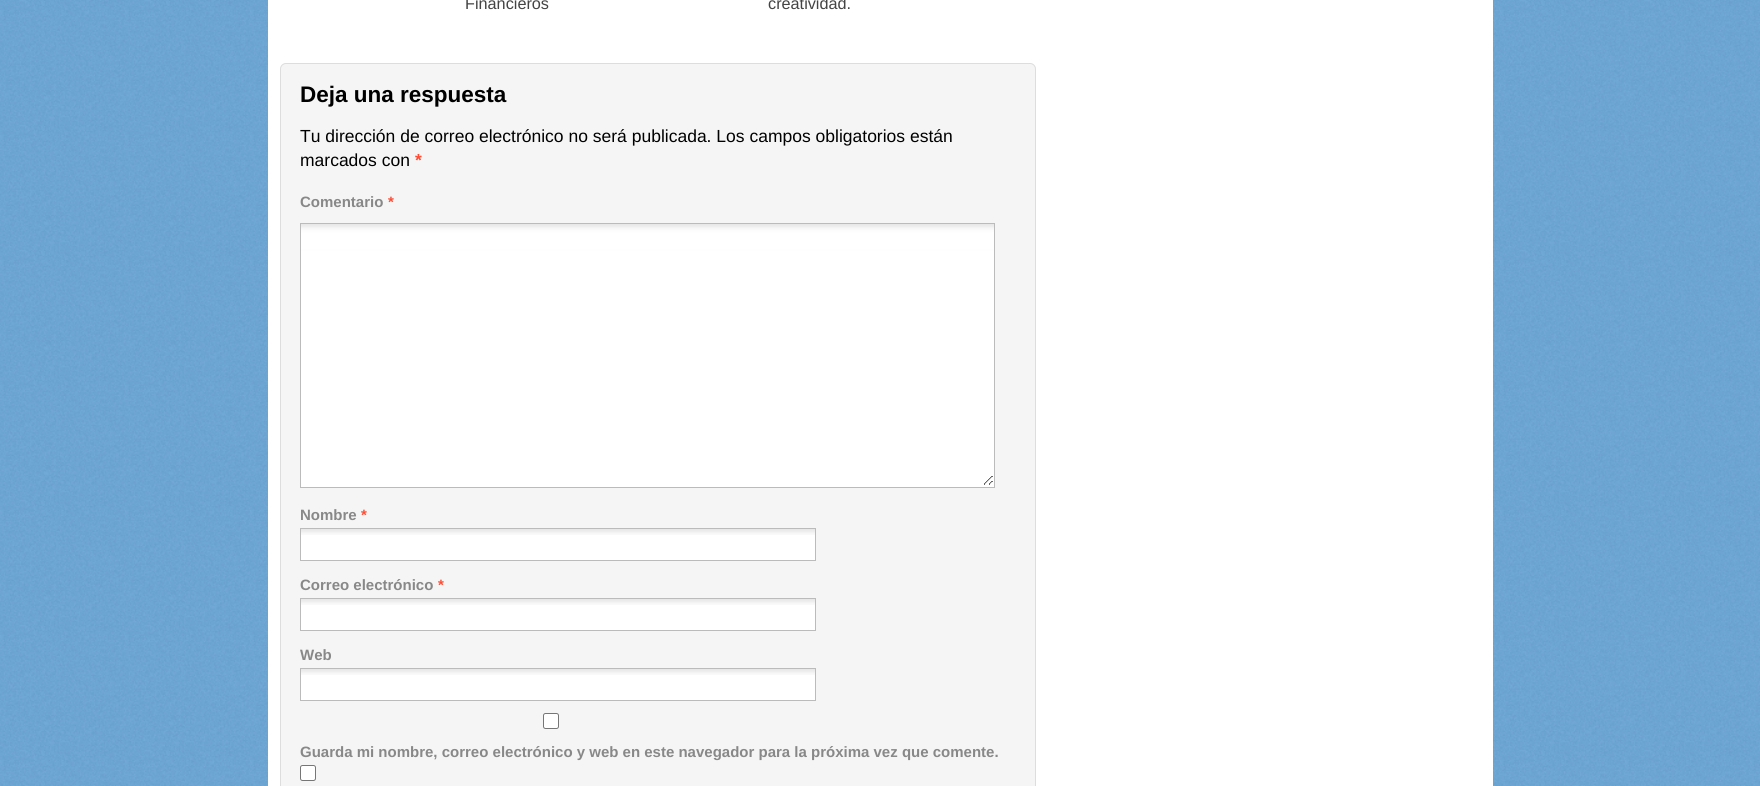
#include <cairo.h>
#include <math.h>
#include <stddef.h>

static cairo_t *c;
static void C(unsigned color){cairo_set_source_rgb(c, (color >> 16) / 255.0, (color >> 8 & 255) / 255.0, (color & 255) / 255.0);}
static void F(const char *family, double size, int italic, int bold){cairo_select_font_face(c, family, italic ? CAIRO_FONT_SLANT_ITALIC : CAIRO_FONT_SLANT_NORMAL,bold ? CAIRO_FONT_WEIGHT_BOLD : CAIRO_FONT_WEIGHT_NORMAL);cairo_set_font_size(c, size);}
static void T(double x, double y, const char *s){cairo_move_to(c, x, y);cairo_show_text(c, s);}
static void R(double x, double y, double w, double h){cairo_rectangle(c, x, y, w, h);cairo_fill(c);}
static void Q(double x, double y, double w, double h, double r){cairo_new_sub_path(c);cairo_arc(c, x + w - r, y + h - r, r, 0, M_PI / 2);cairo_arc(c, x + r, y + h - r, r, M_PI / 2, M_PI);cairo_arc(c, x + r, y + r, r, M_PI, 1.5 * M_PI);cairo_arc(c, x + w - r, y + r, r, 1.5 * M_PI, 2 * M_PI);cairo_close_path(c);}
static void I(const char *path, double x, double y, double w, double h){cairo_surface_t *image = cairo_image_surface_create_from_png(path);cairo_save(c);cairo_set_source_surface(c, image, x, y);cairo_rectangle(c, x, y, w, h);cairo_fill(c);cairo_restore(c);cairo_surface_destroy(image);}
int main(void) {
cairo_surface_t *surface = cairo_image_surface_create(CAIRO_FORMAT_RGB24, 1760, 786);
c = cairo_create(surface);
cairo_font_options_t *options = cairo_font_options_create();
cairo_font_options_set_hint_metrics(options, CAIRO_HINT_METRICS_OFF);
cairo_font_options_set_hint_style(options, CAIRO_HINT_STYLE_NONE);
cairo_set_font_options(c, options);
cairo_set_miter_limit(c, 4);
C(0xffffff);
cairo_paint(c);
I("1.png",0,0,1760,786);
C(0xffffff);
R(268,0,1225,786);
F("Liberation Sans",16.25,0,0);
C(0x444444);
T(465,9,"Financieros");
T(768,9,"creatividad.");
C(0xf5f5f5);
Q(280.5,63.5,755,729,5.5);
cairo_fill_preserve(c);
C(0xdddddd);
cairo_set_line_width(c,1);
cairo_stroke(c);
F("Liberation Sans",22.5,0,1);
C(0x000000);
T(300,102,"Deja una respuesta");
F("Liberation Sans",17.5,0,0);
T(300,142,"Tu dirección de correo electrónico no será publicada. Los campos obligatorios están");
T(300,166,"marcados con");
F("Liberation Sans",17.5,0,1);
C(0xff4b33);
T(415,166,"*");
F("Liberation Sans",15,0,1);
C(0x888888);
T(300,207,"Comentario");
C(0xff4b33);
T(388,207,"*");
C(0xffffff);
R(301,251,693,236);
I("2.png",301,224,693,261);
cairo_rectangle(c,300.5,223.5,694,264);
C(0xbbbbbb);
cairo_stroke(c);
C(0x888888);
T(300,520,"Nombre");
C(0xff4b33);
T(361,520,"*");
C(0xffffff);
R(301,535,514,25);
I("3.png",301,529,514,6);
cairo_rectangle(c,300.5,528.5,515,32);
C(0xbbbbbb);
cairo_stroke(c);
C(0x888888);
T(300,590,"Correo electrónico");
C(0xff4b33);
T(438,590,"*");
C(0xffffff);
R(301,605,514,25);
I("3.png",301,599,514,6);
cairo_rectangle(c,300.5,598.5,515,32);
C(0xbbbbbb);
cairo_stroke(c);
C(0x888888);
T(300,660,"Web");
C(0xffffff);
R(301,675,514,25);
I("3.png",301,669,514,6);
cairo_rectangle(c,300.5,668.5,515,32);
C(0xbbbbbb);
cairo_stroke(c);
C(0xffffff);
Q(543.5,713.5,15,15,2);
cairo_fill_preserve(c);
C(0x767676);
cairo_stroke(c);
C(0x888888);
T(300,757,"Guarda mi nombre, correo electrónico y web en este navegador para la próxima vez que comente.");
C(0xffffff);
Q(300.5,765.5,15,15,2);
cairo_fill_preserve(c);
C(0x767676);
cairo_stroke(c);
cairo_surface_write_to_png(surface, "o.png");
cairo_font_options_destroy(options);
cairo_destroy(c);
cairo_surface_destroy(surface);
return 0;
}
